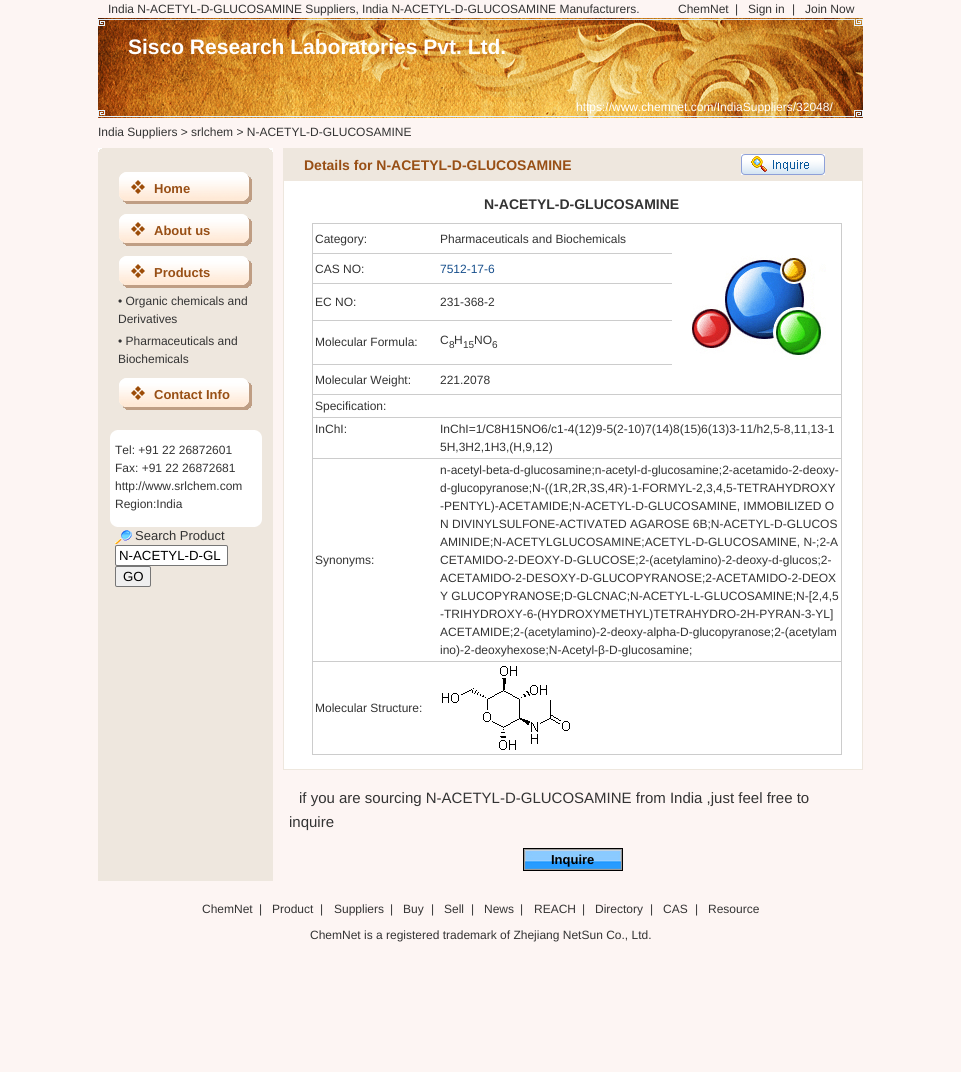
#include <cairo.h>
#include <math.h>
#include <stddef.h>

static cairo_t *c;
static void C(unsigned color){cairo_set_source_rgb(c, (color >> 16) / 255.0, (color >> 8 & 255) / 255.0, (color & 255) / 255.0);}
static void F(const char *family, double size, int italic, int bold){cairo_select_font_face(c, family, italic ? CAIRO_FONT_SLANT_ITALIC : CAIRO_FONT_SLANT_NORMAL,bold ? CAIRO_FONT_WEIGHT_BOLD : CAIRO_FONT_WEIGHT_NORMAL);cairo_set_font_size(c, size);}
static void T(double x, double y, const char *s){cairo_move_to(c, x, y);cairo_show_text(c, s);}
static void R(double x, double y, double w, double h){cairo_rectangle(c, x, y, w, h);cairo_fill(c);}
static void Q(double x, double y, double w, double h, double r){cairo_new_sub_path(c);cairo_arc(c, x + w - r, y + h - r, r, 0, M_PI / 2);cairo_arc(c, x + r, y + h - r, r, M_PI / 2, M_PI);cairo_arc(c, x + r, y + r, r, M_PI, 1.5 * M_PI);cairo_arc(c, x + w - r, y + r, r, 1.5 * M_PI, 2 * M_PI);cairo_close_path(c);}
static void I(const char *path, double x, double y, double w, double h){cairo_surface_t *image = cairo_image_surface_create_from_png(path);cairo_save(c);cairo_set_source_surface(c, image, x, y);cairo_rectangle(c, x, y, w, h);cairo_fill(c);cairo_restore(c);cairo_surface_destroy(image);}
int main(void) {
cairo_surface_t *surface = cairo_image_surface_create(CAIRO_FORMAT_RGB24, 961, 1072);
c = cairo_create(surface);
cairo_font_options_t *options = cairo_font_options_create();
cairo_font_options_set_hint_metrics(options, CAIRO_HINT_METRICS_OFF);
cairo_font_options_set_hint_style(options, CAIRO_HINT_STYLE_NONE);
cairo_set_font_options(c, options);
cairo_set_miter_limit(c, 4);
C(0xfdf5f3);
cairo_paint(c);
F("Liberation Sans",12,0,0);
C(0x333333);
T(108,13,"India N-ACETYL-D-GLUCOSAMINE Suppliers, India N-ACETYL-D-GLUCOSAMINE Manufacturers.");
T(678,13,"ChemNet");
T(735,13,"|");
T(748,13,"Sign in");
T(792,13,"|");
T(805,13,"Join Now");
I("1.png",98,18,765,100);
F("Liberation Sans",21,0,1);
C(0xffffff);
T(128,54,"Sisco Research Laboratories Pvt. Ltd.");
F("Liberation Sans",12,0,0);
T(576,111,"https://www.chemnet.com/IndiaSuppliers/32048/");
C(0x333333);
T(98,136,"India Suppliers > srlchem > N-ACETYL-D-GLUCOSAMINE");
C(0xeee7de);
R(98,152,175,729);
I("2.png",98,148,175,4);
I("3.png",119,172,133,32);
F("Liberation Sans",13,0,1);
C(0x984f15);
T(154,193,"Home");
I("3.png",119,214,133,32);
T(154,235,"About us");
I("3.png",119,256,133,32);
T(154,277,"Products");
F("Liberation Sans",12,0,0);
C(0x333333);
T(118,305,"• Organic chemicals and");
T(118,323,"Derivatives");
T(118,345,"• Pharmaceuticals and");
T(118,363,"Biochemicals");
I("3.png",119,378,133,32);
F("Liberation Sans",13,0,1);
C(0x984f15);
T(154,399,"Contact Info");
I("4.png",110,430,152,11);
C(0xffffff);
R(110,441,152,72);
F("Liberation Sans",12,0,0);
C(0x333333);
T(115,454,"Tel: +91 22 26872601");
T(115,472,"Fax: +91 22 26872681");
T(115,490,"http://www.srlchem.com");
T(115,508,"Region:India");
I("5.png",110,513,152,14);
I("6.png",115,530,17,14);
F("Liberation Sans",13,0,0);
T(135,540,"Search Product");
C(0xffffff);
Q(115.5,545.5,112,20,1.5);
cairo_fill_preserve(c);
C(0x767676);
cairo_set_line_width(c,1);
cairo_stroke(c);
F("Liberation Sans",13.25,0,0);
C(0x000000);
T(119,560,"N-ACETYL-D-GL");
C(0xefefef);
Q(115.5,566.5,35,20,1.5);
cairo_fill_preserve(c);
C(0x767676);
cairo_stroke(c);
C(0x000000);
T(123,581,"GO");
cairo_rectangle(c,283.5,148.5,579,621);
C(0xeee7de);
cairo_stroke(c);
R(284,149,578,32);
F("Liberation Sans",14,0,1);
C(0x984f15);
T(304,170,"Details for N-ACETYL-D-GLUCOSAMINE");
I("7.png",741,154,84,21);
C(0xffffff);
R(284,181,578,588);
C(0x333333);
T(484,209,"N-ACETYL-D-GLUCOSAMINE");
C(0xcccccc);
R(312,223,530,532);
C(0xffffff);
R(313,224,359,29);
F("Liberation Sans",12,0,0);
C(0x333333);
T(315,243,"Category:");
T(440,243,"Pharmaceuticals and Biochemicals");
C(0xffffff);
R(672,224,169,141);
I("8.png",690,255,136,105);
R(313,254,359,29);
C(0x333333);
T(315,273,"CAS NO:");
C(0x174f8c);
T(440,273,"7512-17-6");
C(0xffffff);
R(313,284,359,36);
C(0x333333);
T(315,306,"EC NO:");
T(440,306,"231-368-2");
C(0xffffff);
R(313,321,359,43);
C(0x333333);
T(315,346,"Molecular Formula:");
T(440,344,"C");
F("Liberation Sans",10,0,0);
T(449,348,"8");
F("Liberation Sans",12,0,0);
T(454,344,"H");
F("Liberation Sans",10,0,0);
T(463,348,"15");
F("Liberation Sans",12,0,0);
T(474,344,"NO");
F("Liberation Sans",10,0,0);
T(492,348,"6");
C(0xffffff);
R(313,365,528,29);
F("Liberation Sans",12,0,0);
C(0x333333);
T(315,384,"Molecular Weight:");
T(440,384,"221.2078");
C(0xffffff);
R(313,395,528,22);
C(0x333333);
T(315,410,"Specification:");
C(0xffffff);
R(313,418,528,40);
C(0x333333);
T(315,433,"InChI:");
T(440,433,"InChI=1/C8H15NO6/c1-4(12)9-5(2-10)7(14)8(15)6(13)3-11/h2,5-8,11,13-1");
T(440,451,"5H,3H2,1H3,(H,9,12)");
C(0xffffff);
R(313,459,528,202);
C(0x333333);
T(315,564,"Synonyms:");
T(440,474,"n-acetyl-beta-d-glucosamine;n-acetyl-d-glucosamine;2-acetamido-2-deoxy-");
T(440,492,"d-glucopyranose;N-((1R,2R,3S,4R)-1-FORMYL-2,3,4,5-TETRAHYDROXY");
T(440,510,"-PENTYL)-ACETAMIDE;N-ACETYL-D-GLUCOSAMINE, IMMOBILIZED O");
T(440,528,"N DIVINYLSULFONE-ACTIVATED AGAROSE 6B;N-ACETYL-D-GLUCOS");
T(440,546,"AMINIDE;N-ACETYLGLUCOSAMINE;ACETYL-D-GLUCOSAMINE, N-;2-A");
T(440,564,"CETAMIDO-2-DEOXY-D-GLUCOSE;2-(acetylamino)-2-deoxy-d-glucos;2-");
T(440,582,"ACETAMIDO-2-DESOXY-D-GLUCOPYRANOSE;2-ACETAMIDO-2-DEOX");
T(440,600,"Y GLUCOPYRANOSE;D-GLCNAC;N-ACETYL-L-GLUCOSAMINE;N-[2,4,5");
T(440,618,"-TRIHYDROXY-6-(HYDROXYMETHYL)TETRAHYDRO-2H-PYRAN-3-YL]");
T(440,636,"ACETAMIDE;2-(acetylamino)-2-deoxy-alpha-D-glucopyranose;2-(acetylam");
T(440,654,"ino)-2-deoxyhexose;N-Acetyl-β-D-glucosamine;");
C(0xffffff);
R(313,662,528,92);
C(0x333333);
T(315,712,"Molecular Structure:");
I("9.png",442,666,128,84);
F("Liberation Sans",15,0,0);
T(299,803,"if you are sourcing N-ACETYL-D-GLUCOSAMINE from India ,just feel free to");
T(289,827,"inquire");
I("10.png",523,848,100,23);
F("Liberation Sans",13,0,1);
C(0x000000);
T(551,864,"Inquire");
F("Liberation Sans",12,0,0);
C(0x333333);
T(202,913,"ChemNet");
T(259,913,"|");
T(272,913,"Product");
T(320,913,"|");
T(334,913,"Suppliers");
T(390,913,"|");
T(403,913,"Buy");
T(431,913,"|");
T(444,913,"Sell");
T(471,913,"|");
T(484,913,"News");
T(520,913,"|");
T(534,913,"REACH");
T(582,913,"|");
T(595,913,"Directory");
T(650,913,"|");
T(663,913,"CAS");
T(695,913,"|");
T(708,913,"Resource");
T(310,939,"ChemNet is a registered trademark of Zhejiang NetSun Co., Ltd.");
cairo_surface_write_to_png(surface, "o.png");
cairo_font_options_destroy(options);
cairo_destroy(c);
cairo_surface_destroy(surface);
return 0;
}
